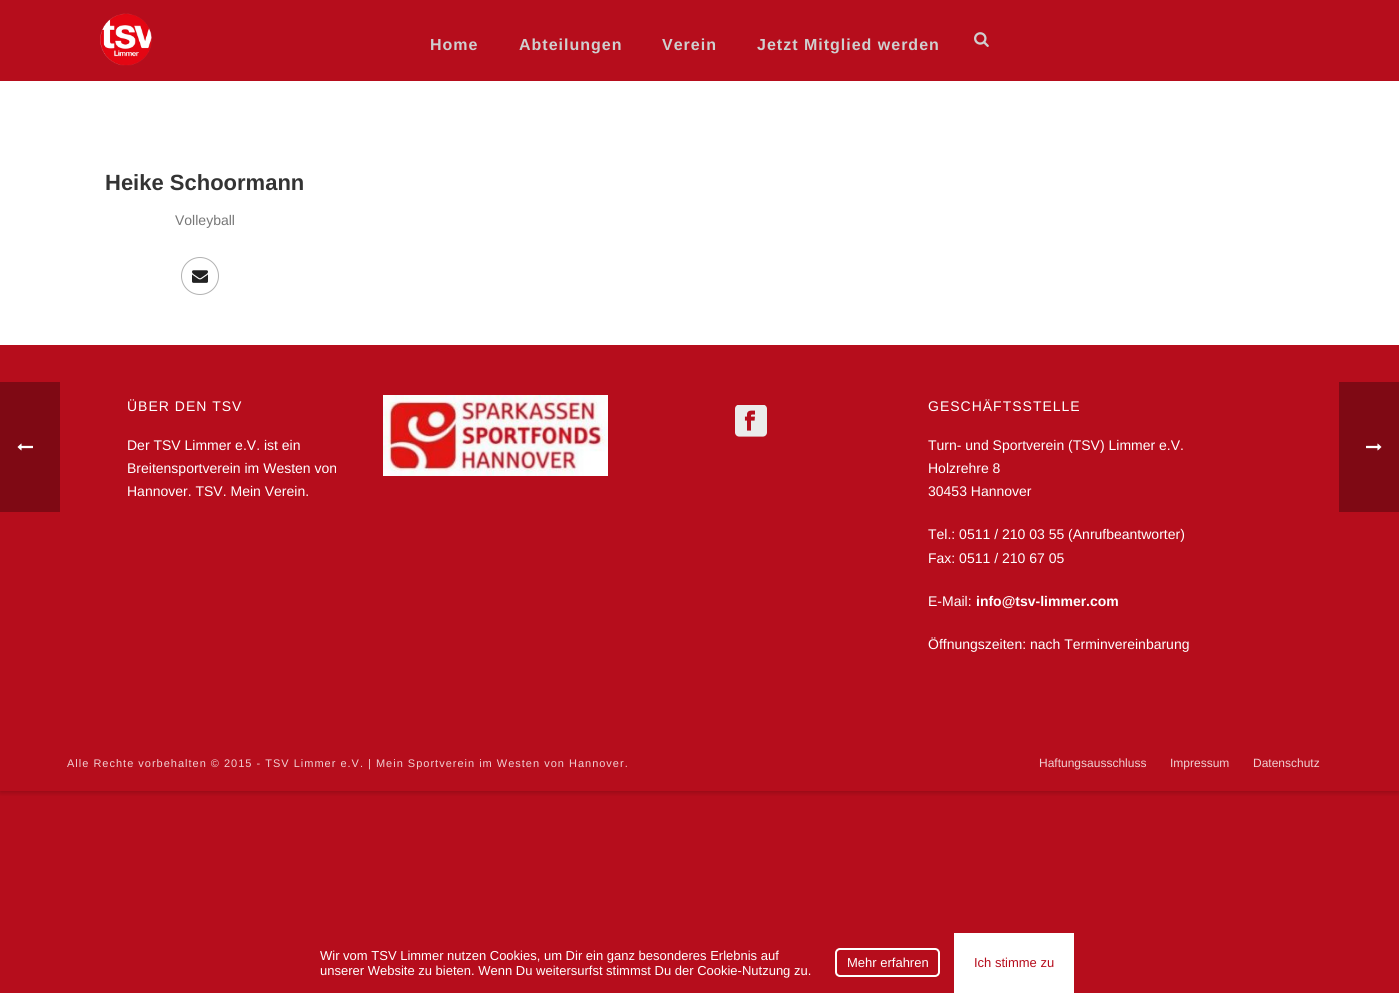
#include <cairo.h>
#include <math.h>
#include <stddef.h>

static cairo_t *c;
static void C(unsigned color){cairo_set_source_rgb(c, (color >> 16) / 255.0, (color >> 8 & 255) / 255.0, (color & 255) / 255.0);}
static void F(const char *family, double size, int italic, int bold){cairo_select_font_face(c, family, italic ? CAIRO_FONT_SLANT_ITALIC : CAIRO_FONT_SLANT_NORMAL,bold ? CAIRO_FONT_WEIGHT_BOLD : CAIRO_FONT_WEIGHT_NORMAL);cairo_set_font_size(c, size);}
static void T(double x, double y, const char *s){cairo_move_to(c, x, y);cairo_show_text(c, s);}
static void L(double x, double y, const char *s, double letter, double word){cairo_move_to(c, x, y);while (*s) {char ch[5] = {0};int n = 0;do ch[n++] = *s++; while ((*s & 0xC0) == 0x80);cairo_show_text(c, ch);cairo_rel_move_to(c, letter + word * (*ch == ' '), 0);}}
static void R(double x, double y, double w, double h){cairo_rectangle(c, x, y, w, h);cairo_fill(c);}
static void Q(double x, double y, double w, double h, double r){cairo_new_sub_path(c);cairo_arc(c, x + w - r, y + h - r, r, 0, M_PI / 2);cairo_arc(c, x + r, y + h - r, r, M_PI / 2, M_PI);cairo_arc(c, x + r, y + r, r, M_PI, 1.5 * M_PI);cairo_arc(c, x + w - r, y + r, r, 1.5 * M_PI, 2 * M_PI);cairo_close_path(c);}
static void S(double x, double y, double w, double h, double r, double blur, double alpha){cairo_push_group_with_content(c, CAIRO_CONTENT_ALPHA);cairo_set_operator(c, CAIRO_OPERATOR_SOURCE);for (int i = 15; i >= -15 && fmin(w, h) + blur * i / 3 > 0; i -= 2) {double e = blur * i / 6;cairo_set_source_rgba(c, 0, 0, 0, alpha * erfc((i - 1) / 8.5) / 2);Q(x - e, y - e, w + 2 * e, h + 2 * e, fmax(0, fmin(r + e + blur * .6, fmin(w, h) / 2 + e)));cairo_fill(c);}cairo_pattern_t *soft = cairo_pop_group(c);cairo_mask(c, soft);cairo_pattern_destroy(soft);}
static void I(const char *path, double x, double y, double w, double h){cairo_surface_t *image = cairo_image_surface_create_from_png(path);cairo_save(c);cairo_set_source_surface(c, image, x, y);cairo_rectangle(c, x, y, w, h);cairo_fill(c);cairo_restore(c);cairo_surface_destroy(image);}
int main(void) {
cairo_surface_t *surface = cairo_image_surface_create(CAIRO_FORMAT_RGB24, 1399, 993);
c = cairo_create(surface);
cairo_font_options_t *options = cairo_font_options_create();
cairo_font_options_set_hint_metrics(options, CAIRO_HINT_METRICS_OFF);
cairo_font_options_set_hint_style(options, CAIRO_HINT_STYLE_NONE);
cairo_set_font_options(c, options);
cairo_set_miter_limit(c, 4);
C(0xb60d1c);
cairo_paint(c);
cairo_save(c);
cairo_rectangle(c,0,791,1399,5);
cairo_clip(c);
C(0x000000);
S(0,0,1399,791,0,3.5,.29);
cairo_restore(c);
C(0x7f0914);
R(0,382,60,130);
I("1.png",17,443,16,8);
I("2.png",100,13,52,53);
F("Liberation Sans",16,0,1);
C(0xcfcfcf);
L(430,50,"Home",1,0);
L(519,50,"Abteilungen",1,0);
L(662,50,"Verein",1,0);
L(757,50,"Jetzt Mitglied werden",1,0);
I("3.png",974,32,15,15);
C(0xffffff);
R(0,81,1399,264);
F("Liberation Sans",22,0,1);
C(0x333333);
T(105,190,"Heike Schoormann");
F("Liberation Sans",14,0,0);
C(0x777777);
T(175,225,"Volleyball");
cairo_new_path(c);
cairo_arc(c,200,276,18.5,0,2 * M_PI);
C(0xb2b2b2);
cairo_set_line_width(c,1);
cairo_stroke(c);
I("4.png",192,270,16,13);
C(0xffffff);
L(127,411,"ÜBER DEN TSV",1,0);
T(127,450,"Der TSV Limmer e.V. ist ein");
T(127,473,"Breitensportverein im Westen von");
T(127,496,"Hannover. TSV. Mein Verein.");
I("5.png",383,395,225,81);
I("6.png",735,405,32,32);
L(928,411,"GESCHÄFTSSTELLE",1,0);
T(928,450,"Turn- und Sportverein (TSV) Limmer e.V.");
T(928,473,"Holzrehre 8");
T(928,496,"30453 Hannover");
T(928,539,"Tel.: 0511 / 210 03 55 (Anrufbeantworter)");
T(928,563,"Fax: 0511 / 210 67 05");
T(928,606,"E-Mail:");
F("Liberation Sans",14,0,1);
T(976,606,"info@tsv-limmer.com");
F("Liberation Sans",14,0,0);
T(928,649,"Öffnungszeiten: nach Terminvereinbarung");
F("Liberation Sans",11,0,0);
C(0xf0cfd2);
L(67,767,"Alle Rechte vorbehalten © 2015 - TSV Limmer e.V. | Mein Sportverein im Westen von Hannover.",1,0);
F("Liberation Sans",12,0,0);
T(1039,767,"Haftungsausschluss");
T(1170,767,"Impressum");
T(1253,767,"Datenschutz");
C(0x7f0914);
R(1339,382,60,130);
I("7.png",1366,443,16,8);
F("Liberation Sans",13,0,0);
C(0xffffff);
T(320,960,"Wir vom TSV Limmer nutzen Cookies, um Dir ein ganz besonderes Erlebnis auf");
T(320,975,"unserer Website zu bieten. Wenn Du weitersurfst stimmst Du der Cookie-Nutzung zu.");
Q(836,949,103,27,4);
cairo_set_line_width(c,2);
cairo_stroke(c);
T(847,967,"Mehr erfahren");
R(954,933,120,60);
C(0xb60d1c);
T(974,967,"Ich stimme zu");
cairo_surface_write_to_png(surface, "o.png");
cairo_font_options_destroy(options);
cairo_destroy(c);
cairo_surface_destroy(surface);
return 0;
}
